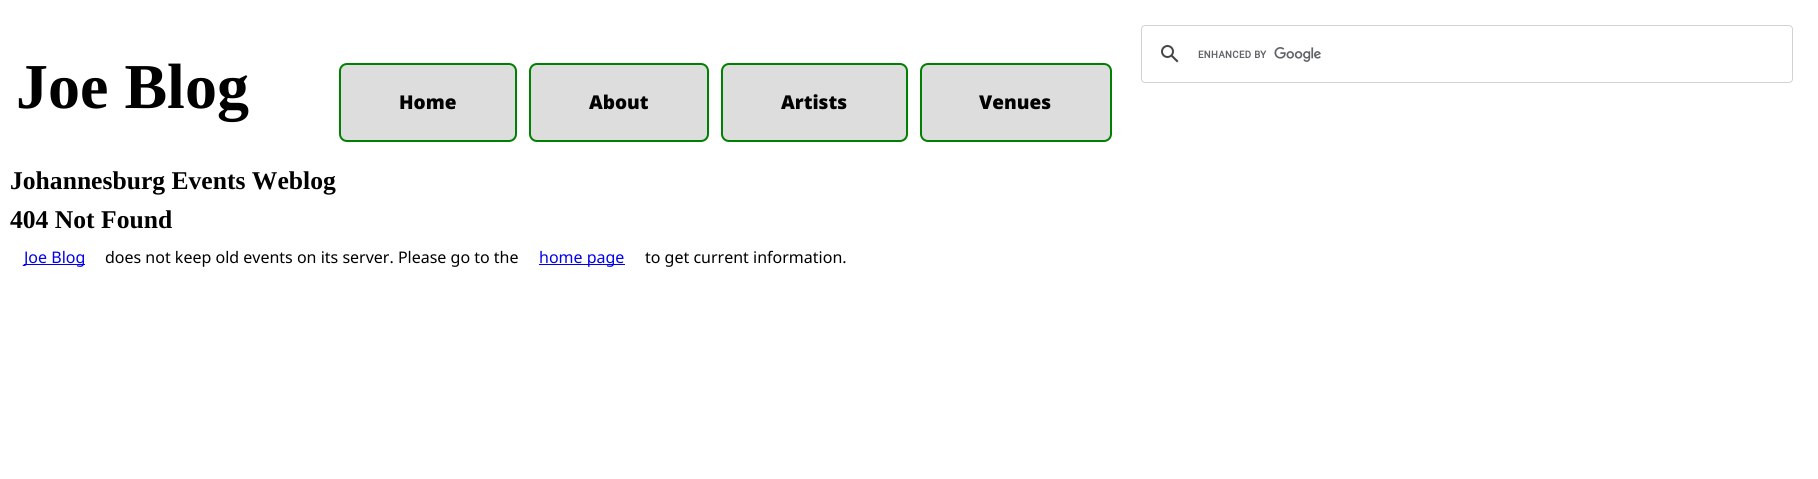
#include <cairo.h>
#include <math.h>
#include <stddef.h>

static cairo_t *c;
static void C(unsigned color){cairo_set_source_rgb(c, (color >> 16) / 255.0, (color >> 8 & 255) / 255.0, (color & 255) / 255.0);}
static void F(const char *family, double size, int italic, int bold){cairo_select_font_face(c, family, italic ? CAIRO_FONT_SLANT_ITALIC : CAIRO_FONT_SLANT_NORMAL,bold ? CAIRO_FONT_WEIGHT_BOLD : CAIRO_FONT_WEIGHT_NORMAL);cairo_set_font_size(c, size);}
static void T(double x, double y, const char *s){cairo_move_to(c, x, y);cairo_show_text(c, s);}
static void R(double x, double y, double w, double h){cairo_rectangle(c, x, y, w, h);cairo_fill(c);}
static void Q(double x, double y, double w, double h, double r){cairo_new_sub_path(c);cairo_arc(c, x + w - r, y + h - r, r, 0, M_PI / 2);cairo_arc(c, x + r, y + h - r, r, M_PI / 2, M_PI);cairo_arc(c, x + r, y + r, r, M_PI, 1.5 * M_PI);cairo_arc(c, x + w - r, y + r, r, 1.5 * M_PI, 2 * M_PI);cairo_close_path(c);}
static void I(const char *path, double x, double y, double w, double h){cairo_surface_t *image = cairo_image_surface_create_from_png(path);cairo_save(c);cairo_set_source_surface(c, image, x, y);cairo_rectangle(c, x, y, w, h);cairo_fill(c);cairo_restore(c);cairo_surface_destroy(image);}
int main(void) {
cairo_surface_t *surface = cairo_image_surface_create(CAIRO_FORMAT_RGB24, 1818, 479);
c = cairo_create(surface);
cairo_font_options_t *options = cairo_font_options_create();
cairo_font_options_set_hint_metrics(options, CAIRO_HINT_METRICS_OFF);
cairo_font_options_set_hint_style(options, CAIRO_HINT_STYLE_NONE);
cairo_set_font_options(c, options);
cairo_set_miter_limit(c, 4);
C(0xffffff);
cairo_paint(c);
Q(1141.5,25.5,651,57,3.5);
C(0xd2d2d2);
cairo_set_line_width(c,1);
cairo_stroke(c);
I("1.png",1161,45,18,18);
I("2.png",1198,47,123,15);
F("Liberation Serif",64,0,1);
C(0x000000);
T(16,108,"Joe Blog");
F("Liberation Serif",25.6,0,1);
T(10,189,"Johannesburg Events Weblog");
C(0xdddddd);
Q(340,64,176,77,7);
cairo_fill_preserve(c);
C(0x008000);
cairo_set_line_width(c,2);
cairo_stroke(c);
F("Noto Sans Black",19,0,0);
C(0x000000);
T(399,109,"Home");
C(0xdddddd);
Q(530,64,178,77,7);
cairo_fill_preserve(c);
C(0x008000);
cairo_stroke(c);
C(0x000000);
T(589,109,"About");
C(0xdddddd);
Q(722,64,185,77,7);
cairo_fill_preserve(c);
C(0x008000);
cairo_stroke(c);
C(0x000000);
T(781,109,"Artists");
C(0xdddddd);
Q(921,64,190,77,7);
cairo_fill_preserve(c);
C(0x008000);
cairo_stroke(c);
C(0x000000);
T(979,109,"Venues");
F("Liberation Serif",25.6,0,1);
T(10,228,"404 Not Found");
C(0x0000ee);
R(24,264,61,1);
F("Noto Sans",16,0,0);
T(24,263,"Joe Blog");
C(0x000000);
T(105,263,"does not keep old events on its server. Please go to the");
C(0x0000ee);
R(539,264,86,1);
T(539,263,"home page");
C(0x000000);
T(645,263,"to get current information.");
cairo_surface_write_to_png(surface, "o.png");
cairo_font_options_destroy(options);
cairo_destroy(c);
cairo_surface_destroy(surface);
return 0;
}
